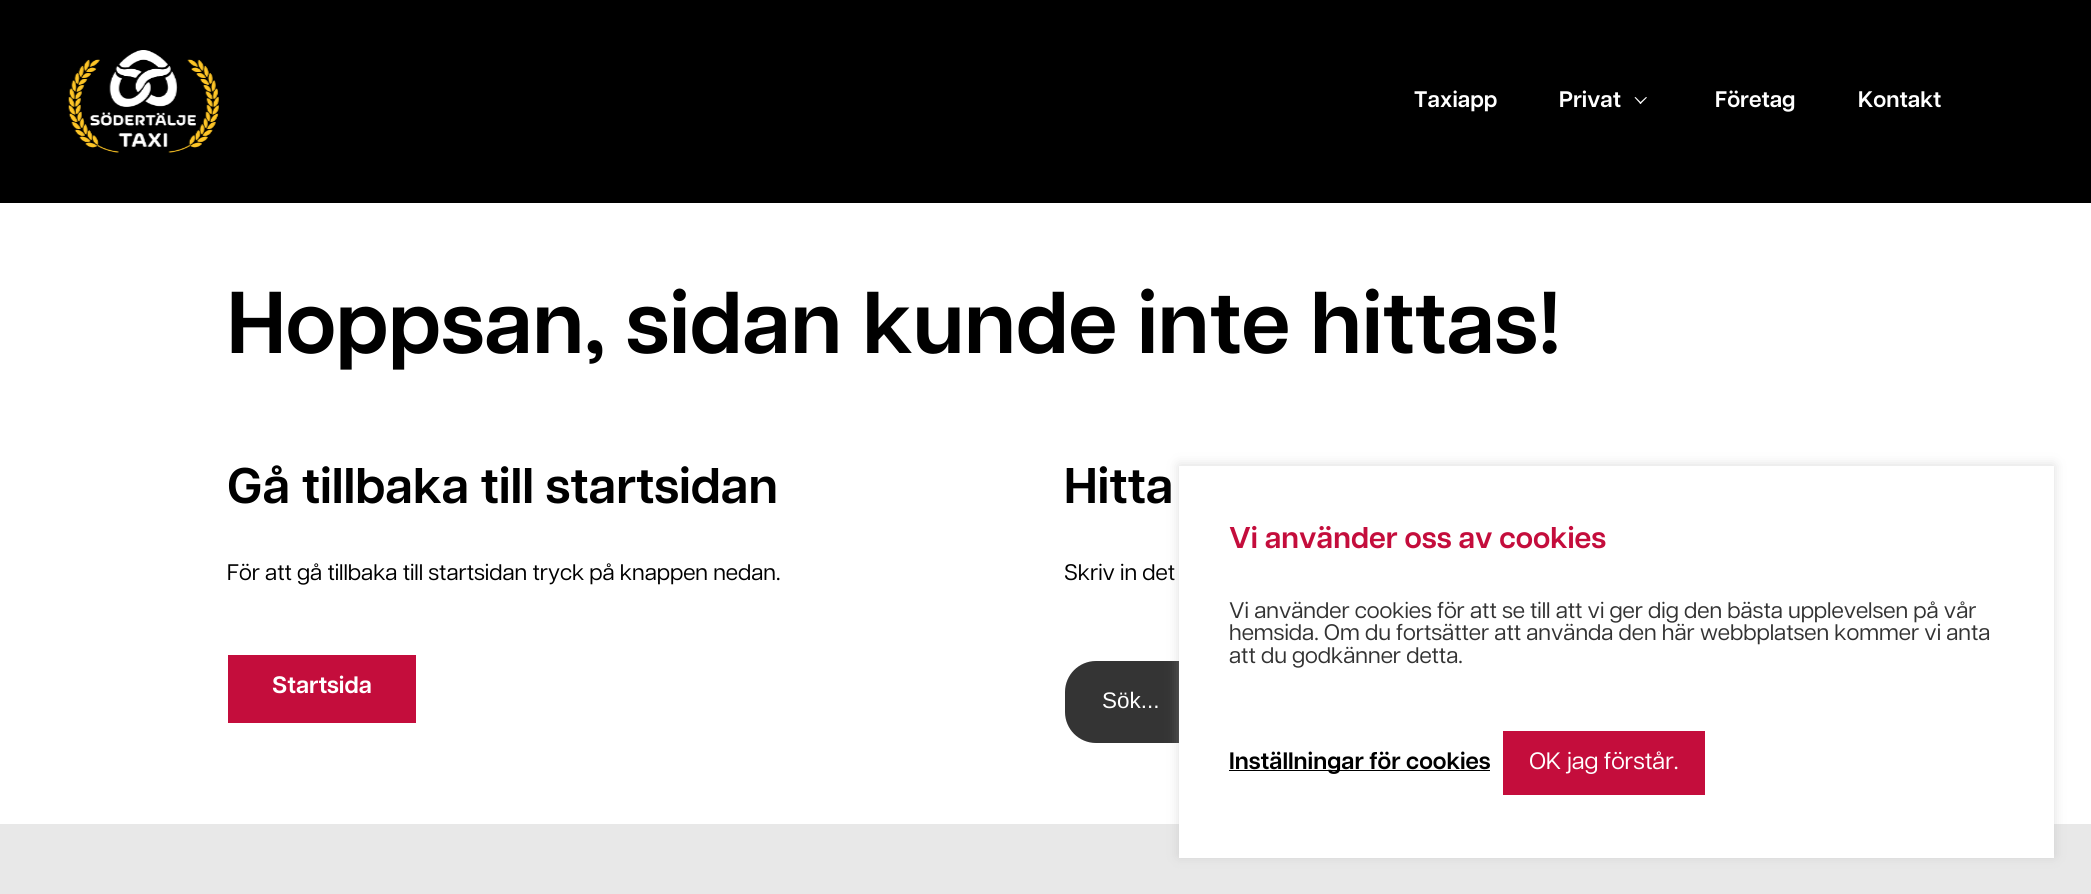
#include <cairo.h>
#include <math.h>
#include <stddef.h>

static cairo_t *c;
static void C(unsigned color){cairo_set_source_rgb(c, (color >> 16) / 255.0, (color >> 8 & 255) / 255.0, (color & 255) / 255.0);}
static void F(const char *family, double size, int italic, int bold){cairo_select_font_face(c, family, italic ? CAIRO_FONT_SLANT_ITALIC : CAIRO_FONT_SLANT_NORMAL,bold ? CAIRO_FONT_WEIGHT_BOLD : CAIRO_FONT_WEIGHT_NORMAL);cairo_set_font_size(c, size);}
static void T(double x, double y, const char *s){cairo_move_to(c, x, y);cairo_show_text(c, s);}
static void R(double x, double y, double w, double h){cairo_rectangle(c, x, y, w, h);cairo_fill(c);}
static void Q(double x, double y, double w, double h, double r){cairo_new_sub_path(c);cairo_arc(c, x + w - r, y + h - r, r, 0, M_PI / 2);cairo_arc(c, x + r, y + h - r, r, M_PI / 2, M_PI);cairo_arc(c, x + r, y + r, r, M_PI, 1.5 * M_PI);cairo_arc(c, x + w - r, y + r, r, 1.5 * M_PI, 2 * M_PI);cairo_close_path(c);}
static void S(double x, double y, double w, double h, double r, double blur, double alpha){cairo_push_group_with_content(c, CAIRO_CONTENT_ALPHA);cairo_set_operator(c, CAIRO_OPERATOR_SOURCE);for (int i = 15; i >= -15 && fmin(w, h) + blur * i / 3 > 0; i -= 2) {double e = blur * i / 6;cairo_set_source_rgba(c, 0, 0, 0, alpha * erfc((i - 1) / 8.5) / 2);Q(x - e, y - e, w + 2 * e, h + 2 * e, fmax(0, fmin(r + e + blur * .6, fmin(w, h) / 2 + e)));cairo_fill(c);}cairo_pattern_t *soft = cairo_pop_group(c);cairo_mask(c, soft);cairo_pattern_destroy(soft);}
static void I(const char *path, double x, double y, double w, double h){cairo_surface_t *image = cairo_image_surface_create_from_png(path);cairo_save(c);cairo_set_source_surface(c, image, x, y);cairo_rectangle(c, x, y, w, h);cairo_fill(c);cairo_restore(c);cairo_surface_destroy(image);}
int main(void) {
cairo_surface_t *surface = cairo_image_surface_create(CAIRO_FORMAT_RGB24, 2091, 894);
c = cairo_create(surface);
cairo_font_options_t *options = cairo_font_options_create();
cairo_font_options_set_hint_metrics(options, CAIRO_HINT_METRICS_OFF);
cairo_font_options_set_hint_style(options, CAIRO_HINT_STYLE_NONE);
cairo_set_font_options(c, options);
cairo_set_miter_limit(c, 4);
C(0xffffff);
cairo_paint(c);
C(0x000000);
R(0,0,2091,203);
I("1.png",68,50,151,103);
F("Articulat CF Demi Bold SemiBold",22.5,0,0);
C(0xffffff);
T(1414,107,"Taxiapp");
T(1559,107,"Privat");
cairo_new_path(c);
cairo_move_to(c,1646,97);
cairo_line_to(c,1647,97.5);
cairo_line_to(c,1640.5,104);
cairo_line_to(c,1639.5,103);
cairo_close_path(c);
cairo_fill(c);
cairo_new_path(c);
cairo_move_to(c,1635.5,97);
cairo_line_to(c,1641.5,103);
cairo_line_to(c,1640.5,104);
cairo_line_to(c,1634.5,97.5);
cairo_close_path(c);
cairo_fill(c);
T(1715,107,"Företag");
T(1858,107,"Kontakt");
F("Articulat CF Demi Bold SemiBold",87.5,0,0);
C(0x000000);
T(227,353,"Hoppsan, sidan kunde inte hittas!");
F("Articulat CF Demi Bold SemiBold",50,0,0);
T(227,503,"Gå tillbaka till startsidan");
F("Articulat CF",22.5,0,0);
T(227,580,"För att gå tillbaka till startsidan tryck på knappen nedan.");
C(0xc40d3c);
R(228,655,188,68);
F("Articulat CF Demi Bold SemiBold",23.75,0,0);
C(0xffffff);
T(272,693,"Startsida");
F("Articulat CF Demi Bold SemiBold",50,0,0);
C(0x000000);
T(1064,503,"Hitta");
F("Articulat CF",22.5,0,0);
T(1064,580,"Skriv in det");
C(0x343434);
Q(1065,661,800,82,31);
cairo_fill(c);
F("Liberation Sans",22.5,0,0);
C(0xffffff);
T(1102,708,"Sök...");
C(0xe8e8e8);
R(0,824,2091,70);
C(0xacabab);
S(1179,465,875,391,0,6,.4);
C(0xffffff);
R(1179,466,875,392);
F("Articulat CF Demi Bold SemiBold",30,0,0);
C(0xc40d3c);
T(1229,548,"Vi använder oss av cookies");
F("Articulat CF",22.5,0,0);
C(0x333333);
T(1229,618,"Vi använder cookies för att se till att vi ger dig den bästa upplevelsen på vår");
T(1229,640,"hemsida. Om du fortsätter att använda den här webbplatsen kommer vi anta");
T(1229,663,"att du godkänner detta.");
C(0x000000);
R(1229,770,261,1);
F("Articulat CF Demi Bold SemiBold",23.75,0,0);
T(1229,769,"Inställningar för cookies");
C(0xc40d3c);
R(1503,731,202,64);
F("Articulat CF",23.75,0,0);
C(0xffffff);
T(1529,769,"OK jag förstår.");
cairo_surface_write_to_png(surface, "o.png");
cairo_font_options_destroy(options);
cairo_destroy(c);
cairo_surface_destroy(surface);
return 0;
}
